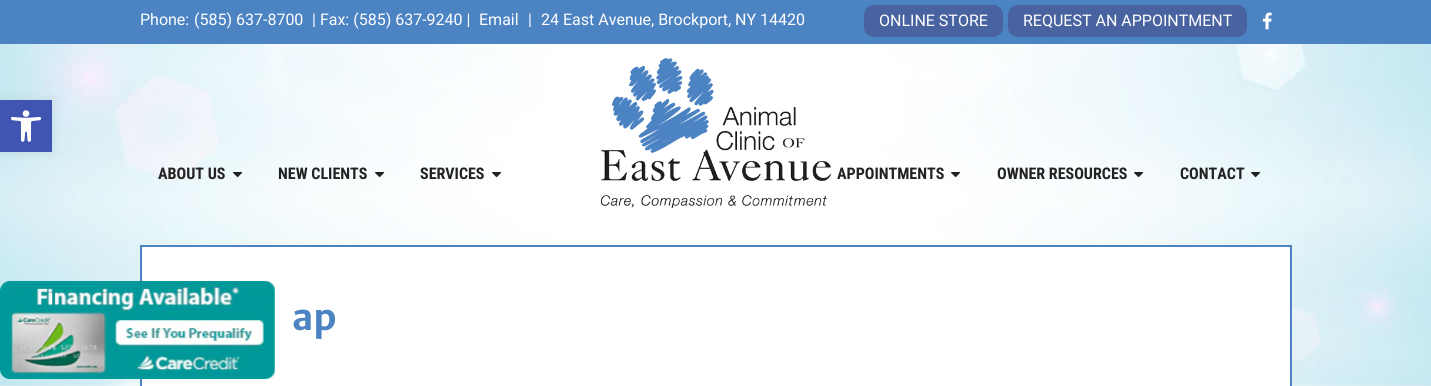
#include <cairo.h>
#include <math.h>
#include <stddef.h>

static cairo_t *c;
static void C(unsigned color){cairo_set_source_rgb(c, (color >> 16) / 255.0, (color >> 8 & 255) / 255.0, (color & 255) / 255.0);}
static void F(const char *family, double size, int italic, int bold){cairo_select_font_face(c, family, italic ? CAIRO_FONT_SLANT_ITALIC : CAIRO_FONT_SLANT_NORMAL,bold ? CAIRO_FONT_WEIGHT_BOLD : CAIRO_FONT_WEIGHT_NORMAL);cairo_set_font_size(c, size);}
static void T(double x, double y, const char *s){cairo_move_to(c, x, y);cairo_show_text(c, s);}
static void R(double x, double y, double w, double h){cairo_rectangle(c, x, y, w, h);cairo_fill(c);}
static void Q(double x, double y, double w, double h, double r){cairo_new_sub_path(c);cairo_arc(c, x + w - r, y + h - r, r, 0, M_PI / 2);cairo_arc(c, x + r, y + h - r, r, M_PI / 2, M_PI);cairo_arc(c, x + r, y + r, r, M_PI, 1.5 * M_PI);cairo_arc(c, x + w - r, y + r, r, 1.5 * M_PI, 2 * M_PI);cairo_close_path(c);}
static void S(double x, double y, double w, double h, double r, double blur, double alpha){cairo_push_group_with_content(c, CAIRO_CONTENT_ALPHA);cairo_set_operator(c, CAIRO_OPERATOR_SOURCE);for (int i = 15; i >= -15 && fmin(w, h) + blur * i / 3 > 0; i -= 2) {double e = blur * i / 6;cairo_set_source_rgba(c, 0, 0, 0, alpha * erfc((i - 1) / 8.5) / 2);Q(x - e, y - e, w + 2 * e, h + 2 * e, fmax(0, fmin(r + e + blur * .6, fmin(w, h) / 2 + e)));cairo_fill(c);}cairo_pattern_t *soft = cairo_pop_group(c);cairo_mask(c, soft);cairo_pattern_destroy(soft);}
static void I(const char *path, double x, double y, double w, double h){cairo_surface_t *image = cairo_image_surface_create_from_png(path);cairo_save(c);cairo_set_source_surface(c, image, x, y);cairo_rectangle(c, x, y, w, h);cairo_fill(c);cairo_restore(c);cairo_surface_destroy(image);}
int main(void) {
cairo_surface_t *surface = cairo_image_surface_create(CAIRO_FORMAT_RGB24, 1431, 386);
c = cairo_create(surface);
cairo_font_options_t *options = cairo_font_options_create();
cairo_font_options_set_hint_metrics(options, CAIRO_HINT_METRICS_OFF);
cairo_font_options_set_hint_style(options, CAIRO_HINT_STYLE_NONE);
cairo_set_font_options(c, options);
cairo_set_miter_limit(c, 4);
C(0xffffff);
cairo_paint(c);
I("1.png",0,44,1431,342);
C(0x000000);
S(0,100,52,52,0,5,.1);
C(0x4054b2);
R(0,100,52,52);
I("2.png",11,110,30,32);
C(0x4c83c3);
R(0,0,1431,44);
F("Roboto",16,0,0);
C(0xffffff);
T(140,25,"Phone:");
T(194,25,"(585) 637-8700");
T(312,25,"| Fax: (585) 637-9240 |");
T(479,25,"Email");
T(528,25,"|");
T(541,25,"24 East Avenue, Brockport, NY 14420");
C(0x4863a0);
Q(864,5,139,32,10);
cairo_fill(c);
C(0xffffff);
T(879,26,"ONLINE STORE");
C(0x4863a0);
Q(1008,5,239,32,10);
cairo_fill(c);
C(0xffffff);
T(1023,26,"REQUEST AN APPOINTMENT");
I("3.png",1262,12,10,18);
I("4.png",601,58,230,150);
F("Roboto Condensed",16,0,1);
C(0x222222);
T(158,179,"ABOUT US");
I("5.png",233,172,10,6);
T(278,179,"NEW CLIENTS");
I("6.png",375,172,10,6);
T(420,179,"SERVICES");
I("7.png",492,172,10,6);
T(837,179,"APPOINTMENTS");
I("8.png",951,172,10,6);
T(997,179,"OWNER RESOURCES");
I("9.png",1134,172,10,6);
T(1180,179,"CONTACT");
I("10.png",1251,172,10,6);
C(0xffffff);
cairo_rectangle(c,141,246,1150,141);
cairo_fill_preserve(c);
C(0x4c83c3);
cairo_stroke(c);
F("Merriweather Sans",36,0,1);
T(292,330,"ap");
I("11.png",0,281,275,98);
cairo_surface_write_to_png(surface, "o.png");
cairo_font_options_destroy(options);
cairo_destroy(c);
cairo_surface_destroy(surface);
return 0;
}
